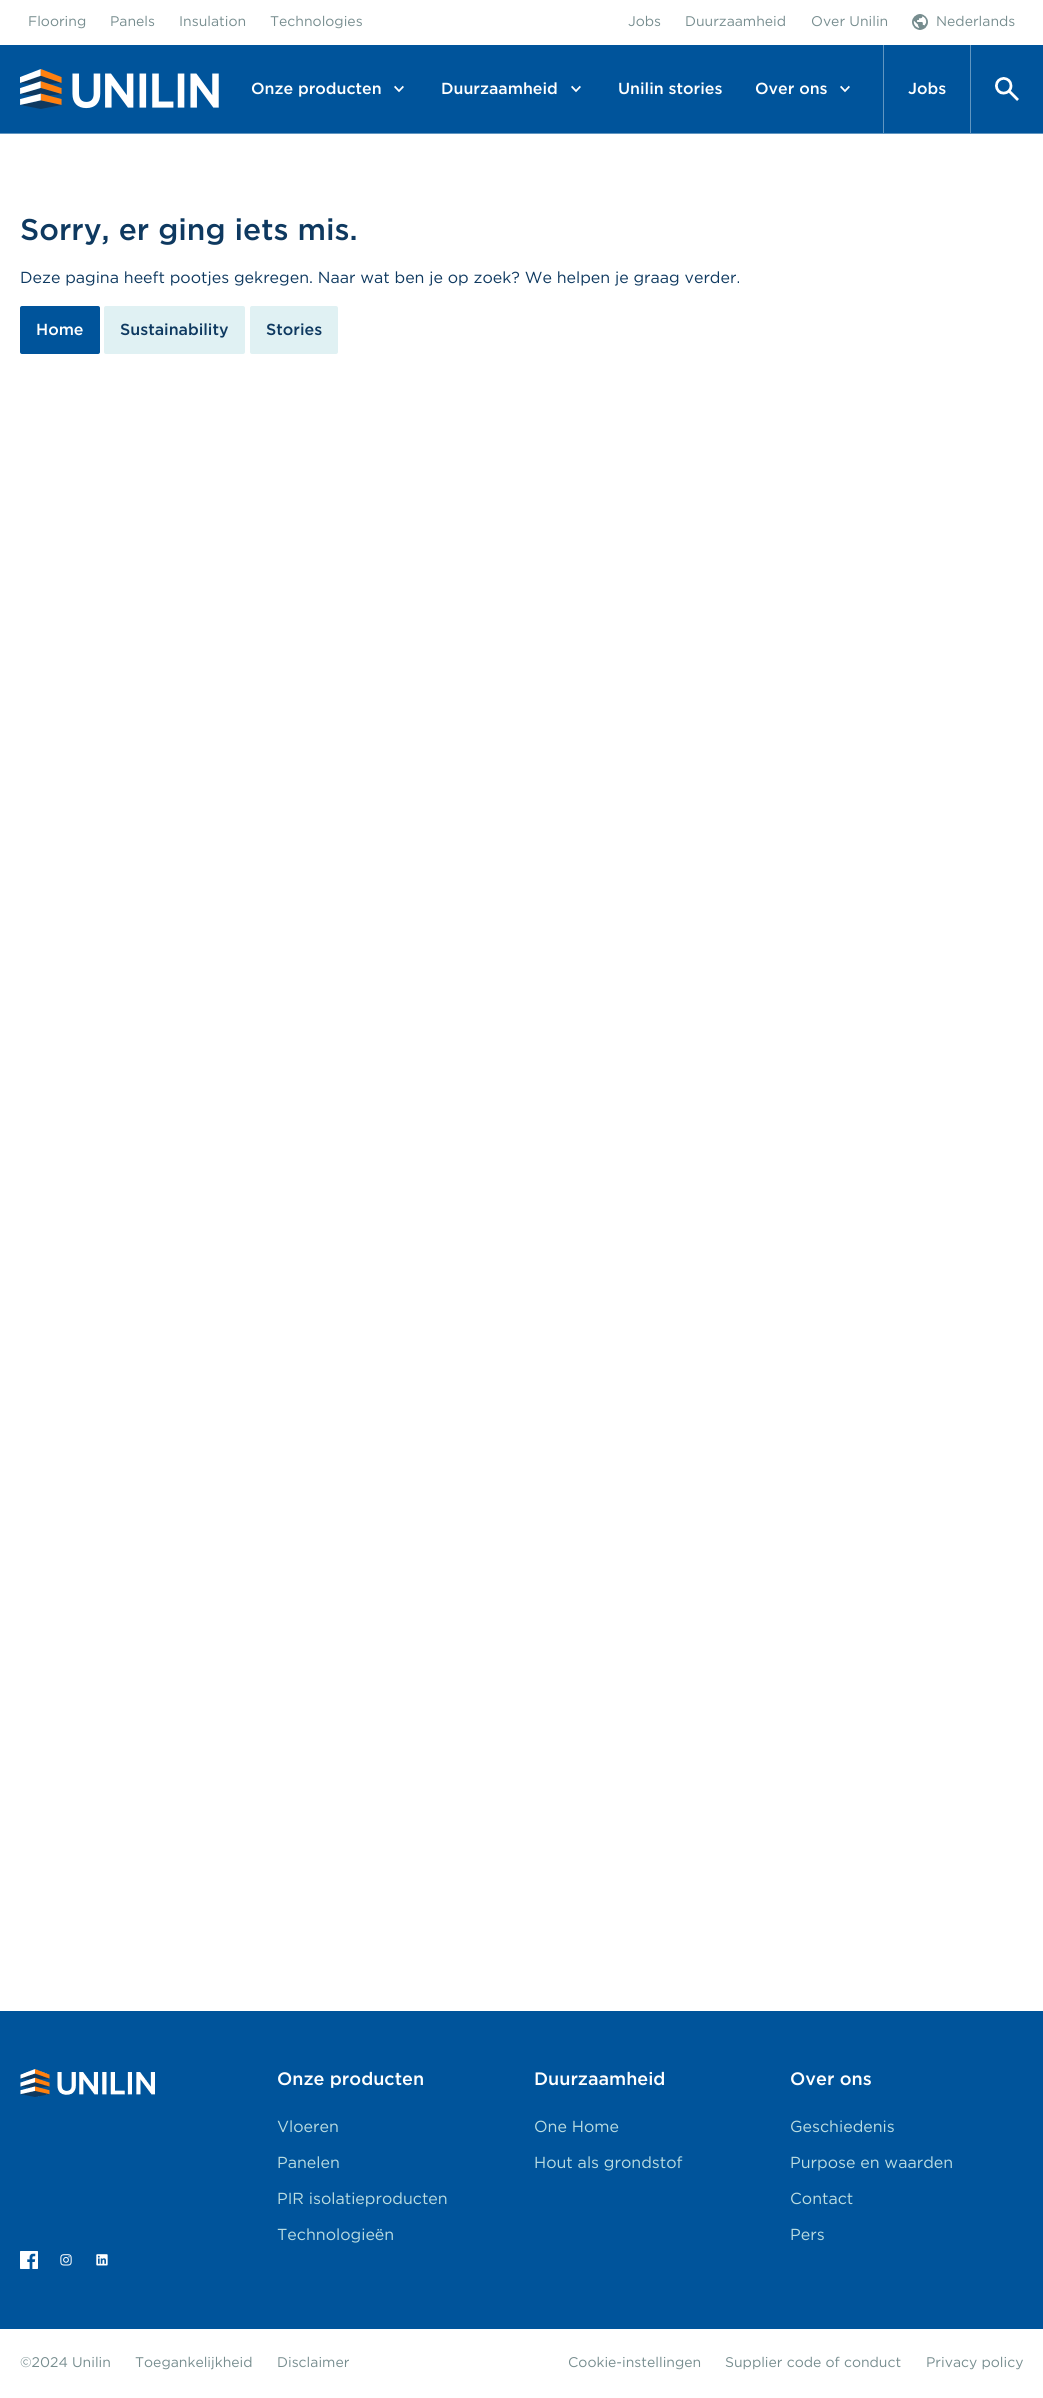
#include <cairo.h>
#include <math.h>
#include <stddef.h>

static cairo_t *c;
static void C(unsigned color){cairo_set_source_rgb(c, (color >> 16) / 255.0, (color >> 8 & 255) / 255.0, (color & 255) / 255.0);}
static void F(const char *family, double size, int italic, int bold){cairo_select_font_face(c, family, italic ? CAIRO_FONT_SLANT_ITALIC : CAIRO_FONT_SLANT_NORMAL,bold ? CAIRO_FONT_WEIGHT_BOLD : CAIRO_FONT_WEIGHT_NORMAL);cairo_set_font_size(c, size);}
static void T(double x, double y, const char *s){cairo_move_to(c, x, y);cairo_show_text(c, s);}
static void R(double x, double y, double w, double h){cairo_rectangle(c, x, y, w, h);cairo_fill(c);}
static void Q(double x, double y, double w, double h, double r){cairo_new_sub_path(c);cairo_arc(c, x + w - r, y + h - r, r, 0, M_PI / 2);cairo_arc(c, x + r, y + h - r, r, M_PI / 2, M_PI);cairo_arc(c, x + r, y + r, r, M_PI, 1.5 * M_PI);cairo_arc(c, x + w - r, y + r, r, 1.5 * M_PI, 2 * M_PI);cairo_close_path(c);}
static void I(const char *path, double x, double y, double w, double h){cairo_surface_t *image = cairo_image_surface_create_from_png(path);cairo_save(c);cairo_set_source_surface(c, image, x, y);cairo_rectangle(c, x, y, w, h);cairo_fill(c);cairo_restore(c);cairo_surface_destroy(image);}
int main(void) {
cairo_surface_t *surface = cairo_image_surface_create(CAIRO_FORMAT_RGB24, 1043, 2398);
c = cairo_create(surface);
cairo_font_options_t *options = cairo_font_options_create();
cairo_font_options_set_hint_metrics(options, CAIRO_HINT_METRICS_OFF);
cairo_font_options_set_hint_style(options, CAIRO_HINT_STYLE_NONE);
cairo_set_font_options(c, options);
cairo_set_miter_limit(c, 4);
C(0xffffff);
cairo_paint(c);
F("Gotham",14,0,0);
C(0x778d8f);
T(28,26,"Flooring");
T(110,26,"Panels");
T(179,26,"Insulation");
T(270,26,"Technologies");
T(628,26,"Jobs");
T(685,26,"Duurzaamheid");
T(811,26,"Over Unilin");
I("1.png",912,14,16,16);
T(936,26,"Nederlands");
C(0x00549b);
R(0,45,1043,88);
C(0x6196c1);
R(0,133,1043,1);
I("2.png",20,69,199,40);
F("Gotham Medium",16,0,0);
C(0xffffff);
T(251,94,"Onze producten");
I("3.png",394,85,10,8);
T(441,94,"Duurzaamheid");
I("3.png",571,85,10,8);
T(618,94,"Unilin stories");
T(755,94,"Over ons");
I("3.png",840,85,10,8);
C(0x6196c1);
R(883,45,1,88);
C(0xffffff);
T(908,94,"Jobs");
C(0x6196c1);
R(970,45,1,88);
I("4.png",995,77,24,24);
F("Gotham Medium",30,0,0);
C(0x0e3960);
T(20,240,"Sorry, er ging iets mis.");
F("Gotham",16,0,0);
T(20,283,"Deze pagina heeft pootjes gekregen. Naar wat ben je op zoek? We helpen je graag verder.");
C(0x00549b);
Q(20,306,80,48,2);
cairo_fill(c);
F("Gotham Medium",16,0,0);
C(0xffffff);
T(36,335,"Home");
C(0xe0f1f3);
Q(104,306,141,48,2);
cairo_fill(c);
C(0x0e3960);
T(120,335,"Sustainability");
C(0xe0f1f3);
Q(250,306,88,48,2);
cairo_fill(c);
C(0x0e3960);
T(266,335,"Stories");
C(0x00549b);
R(0,2011,1043,318);
I("5.png",20,2069,135,28);
F("Gotham Medium",18,0,0);
C(0xffffff);
T(277,2085,"Onze producten");
F("Gotham",16,0,0);
C(0xbadde1);
T(277,2132,"Vloeren");
T(277,2168,"Panelen");
T(277,2204,"PIR isolatieproducten");
T(277,2240,"Technologieën");
F("Gotham Medium",18,0,0);
C(0xffffff);
T(534,2085,"Duurzaamheid");
F("Gotham",16,0,0);
C(0xbadde1);
T(534,2132,"One Home");
T(534,2168,"Hout als grondstof");
F("Gotham Medium",18,0,0);
C(0xffffff);
T(790,2085,"Over ons");
F("Gotham",16,0,0);
C(0xbadde1);
T(790,2132,"Geschiedenis");
T(790,2168,"Purpose en waarden");
T(790,2204,"Contact");
T(790,2240,"Pers");
I("6.png",20,2251,18,18);
I("7.png",60,2254,12,12);
I("8.png",96,2254,12,12);
F("Gotham",14,0,0);
C(0x778d8f);
T(20,2367,"©2024 Unilin");
T(135,2367,"Toegankelijkheid");
T(277,2367,"Disclaimer");
T(568,2367,"Cookie-instellingen");
T(725,2367,"Supplier code of conduct");
T(926,2367,"Privacy policy");
cairo_surface_write_to_png(surface, "o.png");
cairo_font_options_destroy(options);
cairo_destroy(c);
cairo_surface_destroy(surface);
return 0;
}
